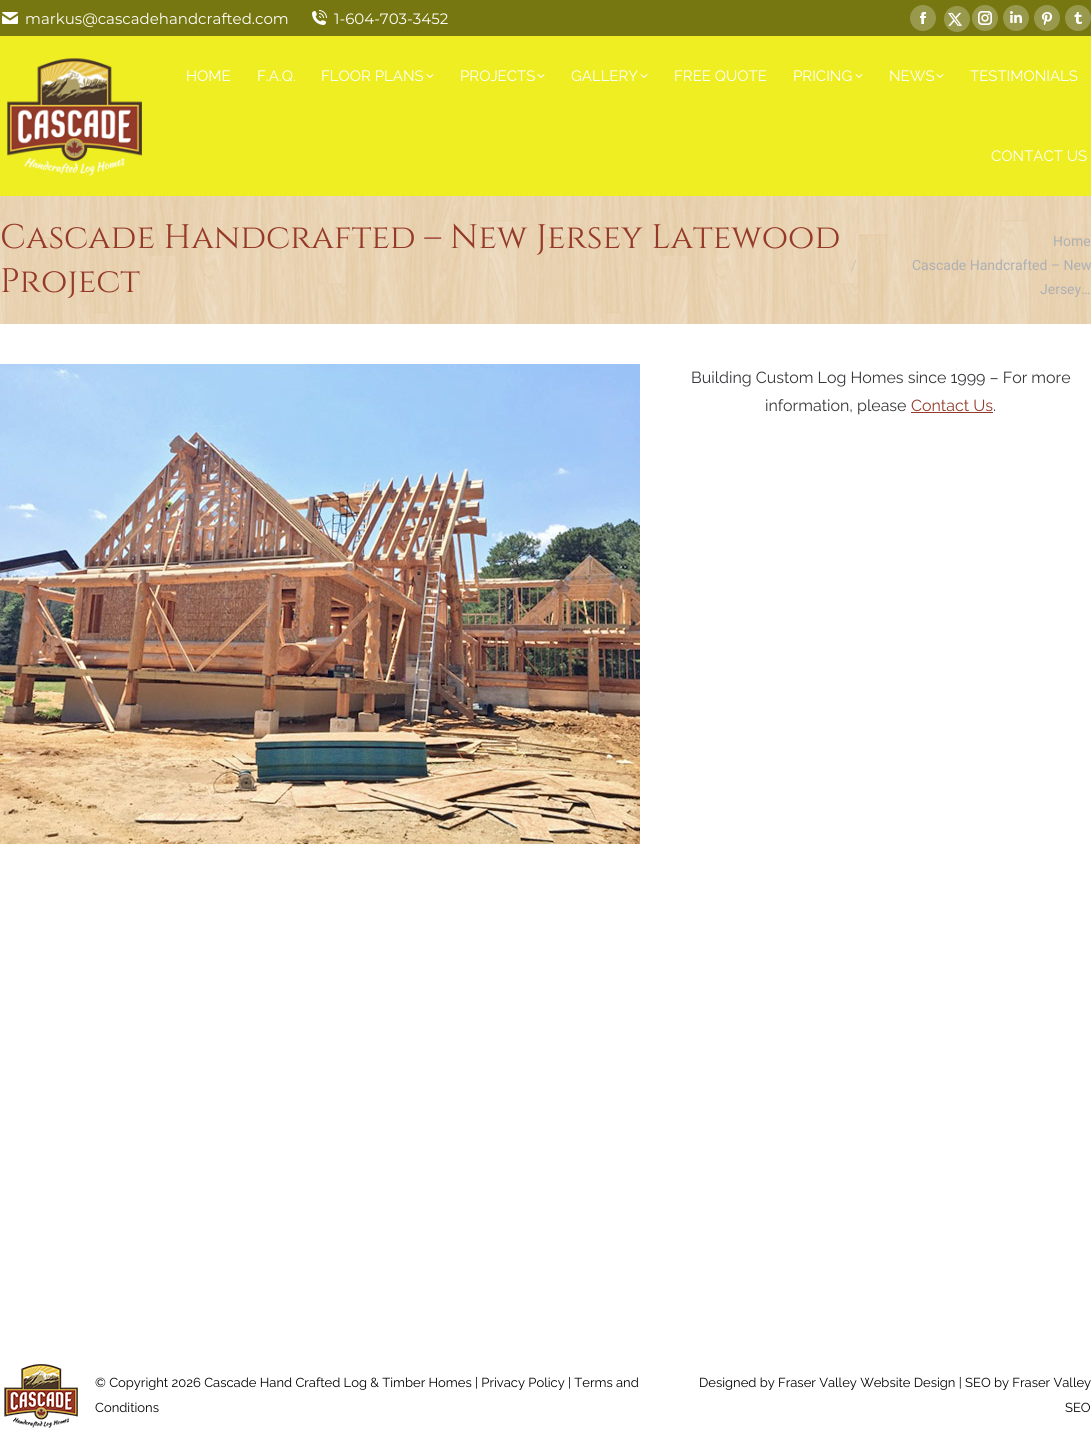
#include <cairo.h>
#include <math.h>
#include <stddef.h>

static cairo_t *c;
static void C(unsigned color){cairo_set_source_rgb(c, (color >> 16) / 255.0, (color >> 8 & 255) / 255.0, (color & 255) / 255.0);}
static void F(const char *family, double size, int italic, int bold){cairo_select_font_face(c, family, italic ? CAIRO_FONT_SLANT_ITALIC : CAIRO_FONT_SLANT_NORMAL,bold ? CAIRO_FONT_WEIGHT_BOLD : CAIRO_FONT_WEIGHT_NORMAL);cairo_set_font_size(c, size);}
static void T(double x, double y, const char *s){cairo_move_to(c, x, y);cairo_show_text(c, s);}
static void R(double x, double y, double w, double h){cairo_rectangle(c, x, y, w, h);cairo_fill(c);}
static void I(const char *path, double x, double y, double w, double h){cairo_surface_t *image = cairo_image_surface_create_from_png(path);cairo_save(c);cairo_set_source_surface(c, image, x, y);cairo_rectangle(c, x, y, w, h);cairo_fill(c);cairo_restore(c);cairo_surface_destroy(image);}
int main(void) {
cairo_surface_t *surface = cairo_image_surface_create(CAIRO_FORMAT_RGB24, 1091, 1448);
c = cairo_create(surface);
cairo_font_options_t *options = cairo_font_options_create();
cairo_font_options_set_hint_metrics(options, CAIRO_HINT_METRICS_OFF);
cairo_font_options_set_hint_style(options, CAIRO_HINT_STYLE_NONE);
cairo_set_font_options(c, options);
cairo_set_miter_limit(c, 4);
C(0xffffff);
cairo_paint(c);
C(0xeeee22);
R(0,36,1091,160);
C(0x777711);
R(0,0,1091,36);
I("1.png",2,12,16,12);
F("Montserrat",15,0,0);
C(0xffffff);
T(25,24,"markus@cascadehandcrafted.com");
I("2.png",312,10,15,15);
T(334,24,"1-604-703-3452");
C(0x99994d);
cairo_new_path(c);
cairo_arc(c,923,18,13,0,2 * M_PI);
cairo_fill(c);
I("3.png",920,12,6,12);
cairo_arc(c,957,19,13,0,2 * M_PI);
cairo_fill(c);
I("4.png",948,12,15,14);
cairo_arc(c,985,18,13,0,2 * M_PI);
cairo_fill(c);
I("5.png",978,11,14,14);
cairo_arc(c,1016,18,13,0,2 * M_PI);
cairo_fill(c);
I("6.png",1010,11,12,12);
cairo_arc(c,1047,18,13,0,2 * M_PI);
cairo_fill(c);
I("7.png",1041,12,12,13);
cairo_arc(c,1078,18,13,0,2 * M_PI);
cairo_fill(c);
I("8.png",1074,12,8,12);
I("9.png",7,58,135,118);
F("Raleway",15,0,0);
C(0xffffff);
T(186,81,"HOME");
T(257,81,"F.A.Q.");
T(321,81,"FLOOR PLANS");
I("10.png",426,74,8,4);
T(460,81,"PROJECTS");
I("10.png",537,74,8,4);
T(571,81,"GALLERY");
I("10.png",640,74,8,4);
T(674,81,"FREE QUOTE");
T(793,81,"PRICING");
I("10.png",855,74,8,4);
T(889,81,"NEWS");
I("10.png",936,74,8,4);
T(970,81,"TESTIMONIALS");
T(991,161,"CONTACT US");
I("11.png",0,196,1091,128);
F("Cinzel",34,0,0);
C(0x953a28);
T(0,248,"Cascade Handcrafted – New Jersey Latewood");
T(0,292,"Project");
F("Roboto",14,0,0);
C(0xadafb3);
T(1053,246,"Home");
C(0xccc3b5);
T(851,270,"/");
C(0xadafb3);
T(912,270,"Cascade Handcrafted – New");
T(1040,294,"Jersey…");
I("12.png",0,364,640,480);
F("Raleway",16,0,0);
C(0x37363a);
T(691,383,"Building Custom Log Homes since 1999 – For more");
T(765,411,"information, please");
C(0x953a28);
T(911,411,"Contact Us");
R(911,412,82,1);
C(0x37363a);
T(993,411,".");
I("13.png",4,1364,74,64);
F("Raleway",13,0,0);
C(0x000000);
T(95,1387,"© Copyright 2026 Cascade Hand Crafted Log & Timber Homes | Privacy Policy | Terms and");
T(95,1412,"Conditions");
T(699,1387,"Designed by Fraser Valley Website Design | SEO by Fraser Valley");
T(1065,1412,"SEO");
cairo_surface_write_to_png(surface, "o.png");
cairo_font_options_destroy(options);
cairo_destroy(c);
cairo_surface_destroy(surface);
return 0;
}
